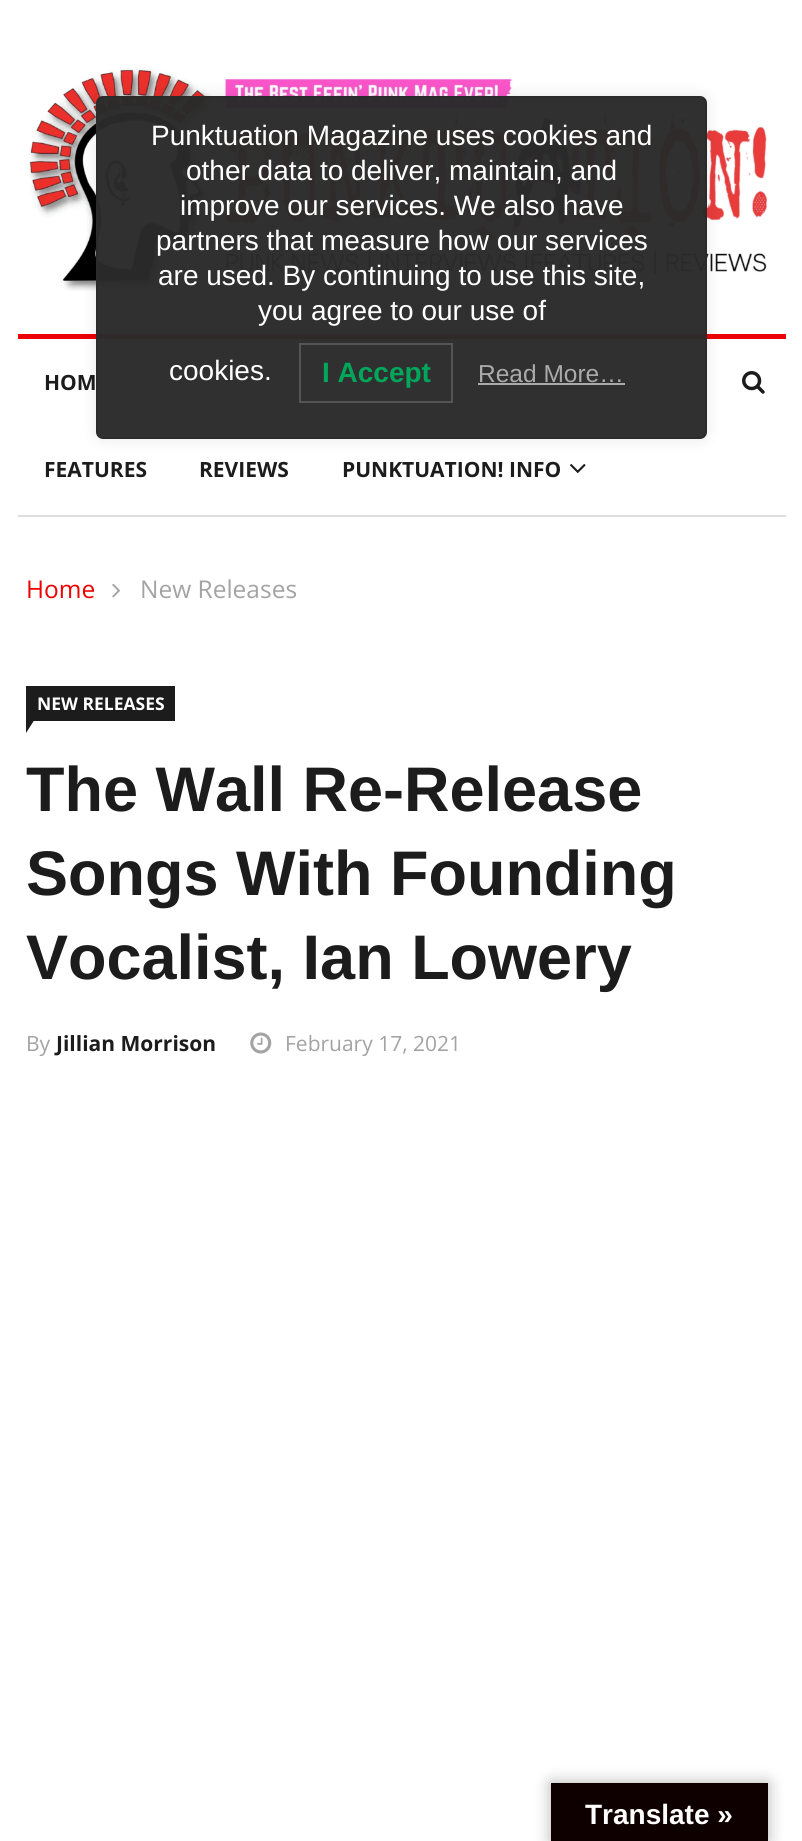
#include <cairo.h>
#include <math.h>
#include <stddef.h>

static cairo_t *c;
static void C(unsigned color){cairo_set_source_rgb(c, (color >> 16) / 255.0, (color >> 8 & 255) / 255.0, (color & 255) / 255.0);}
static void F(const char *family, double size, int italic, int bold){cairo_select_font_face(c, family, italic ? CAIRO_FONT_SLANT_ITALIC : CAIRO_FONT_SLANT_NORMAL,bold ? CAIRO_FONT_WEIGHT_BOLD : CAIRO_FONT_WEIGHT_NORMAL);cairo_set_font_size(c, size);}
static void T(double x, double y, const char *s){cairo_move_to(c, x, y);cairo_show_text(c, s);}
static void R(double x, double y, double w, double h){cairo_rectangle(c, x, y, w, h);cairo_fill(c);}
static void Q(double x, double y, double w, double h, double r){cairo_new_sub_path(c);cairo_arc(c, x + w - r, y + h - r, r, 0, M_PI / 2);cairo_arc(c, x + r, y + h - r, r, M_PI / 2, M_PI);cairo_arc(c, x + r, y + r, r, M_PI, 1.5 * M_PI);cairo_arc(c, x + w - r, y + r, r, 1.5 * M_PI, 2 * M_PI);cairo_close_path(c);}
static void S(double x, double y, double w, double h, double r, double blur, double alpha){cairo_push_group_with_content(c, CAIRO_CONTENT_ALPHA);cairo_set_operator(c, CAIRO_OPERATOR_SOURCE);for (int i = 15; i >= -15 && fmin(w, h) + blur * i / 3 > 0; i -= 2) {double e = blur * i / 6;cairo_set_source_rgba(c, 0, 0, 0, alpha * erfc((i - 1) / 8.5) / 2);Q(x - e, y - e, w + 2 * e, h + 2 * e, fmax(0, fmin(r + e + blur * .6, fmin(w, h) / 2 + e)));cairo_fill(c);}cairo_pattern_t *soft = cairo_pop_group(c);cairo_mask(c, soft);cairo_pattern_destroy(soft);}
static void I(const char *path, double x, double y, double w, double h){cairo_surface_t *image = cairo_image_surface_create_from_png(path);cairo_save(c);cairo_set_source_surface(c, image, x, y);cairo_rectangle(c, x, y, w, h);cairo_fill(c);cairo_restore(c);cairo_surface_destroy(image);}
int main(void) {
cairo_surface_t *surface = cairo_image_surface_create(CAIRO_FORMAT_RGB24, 802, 1841);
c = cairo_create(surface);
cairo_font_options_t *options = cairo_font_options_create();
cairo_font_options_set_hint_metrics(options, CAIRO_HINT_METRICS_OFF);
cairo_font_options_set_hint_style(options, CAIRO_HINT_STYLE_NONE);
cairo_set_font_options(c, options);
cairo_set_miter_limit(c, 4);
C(0xffffff);
cairo_paint(c);
I("1.png",29,68,739,223);
C(0xec0000);
R(18,334,768,5);
cairo_save(c);
cairo_set_fill_rule(c,CAIRO_FILL_RULE_EVEN_ODD);
cairo_new_path(c);
cairo_move_to(c,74,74);
cairo_line_to(c,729,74);
cairo_line_to(c,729,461);
cairo_line_to(c,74,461);
cairo_close_path(c);
cairo_move_to(c,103,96);
cairo_line_to(c,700,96);
cairo_curve_to(c,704,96,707,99,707,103);
cairo_line_to(c,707,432);
cairo_curve_to(c,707,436,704,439,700,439);
cairo_line_to(c,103,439);
cairo_curve_to(c,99,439,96,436,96,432);
cairo_line_to(c,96,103);
cairo_curve_to(c,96,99,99,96,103,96);
cairo_close_path(c);
cairo_clip(c);
C(0x000000);
S(96,96,611,343,7,7,.1);
cairo_restore(c);
cairo_set_source_rgba(c,0.169,0.169,0.169,0.97);
Q(97,97,609,341,6);
cairo_fill_preserve(c);
C(0x2b2b2b);
cairo_stroke(c);
F("Liberation Sans",28,0,0);
C(0xffffff);
T(151,145,"Punktuation Magazine uses cookies and");
T(186,180,"other data to deliver, maintain, and");
T(180,215,"improve our services. We also have");
T(156,250,"partners that measure how our services");
T(158,285,"are used. By continuing to use this site,");
T(258,320,"you agree to our use of");
T(169,380,"cookies.");
cairo_rectangle(c,300,344,152,58);
C(0x555555);
cairo_stroke(c);
F("Liberation Sans",28,0,1);
C(0x00a65a);
T(322,382,"I Accept");
F("Liberation Sans",24.5,0,0);
C(0xaaaaaa);
T(478,382,"Read More…");
R(478,383,147,2);
C(0xdedede);
R(18,515,768,2);
F("Open Sans",21,0,1);
C(0x1c1c1c);
T(44,390,"HOM");
T(44,477,"FEATURES");
T(199,477,"REVIEWS");
T(342,477,"PUNKTUATION! INFO");
I("2.png",570,464,16,9);
I("3.png",742,371,23,23);
F("Open Sans",24.5,0,0);
C(0xec0000);
T(26,598,"Home");
I("4.png",112,583,8,15);
C(0xa3a3a3);
T(140,598,"New Releases");
C(0x1c1c1c);
R(26,686,149,35);
F("Open Sans",17.5,0,1);
C(0xffffff);
T(37,710,"NEW RELEASES");
C(0x1c1c1c);
cairo_new_path(c);
cairo_move_to(c,26,719);
cairo_line_to(c,35,719);
cairo_line_to(c,26,733);
cairo_close_path(c);
cairo_fill(c);
F("Arimo",63,0,1);
T(26,811,"The Wall Re-Release");
T(26,895,"Songs With Founding");
T(26,979,"Vocalist, Ian Lowery");
F("Open Sans",21,0,0);
C(0xa3a3a3);
T(26,1051,"By");
F("Open Sans",21,0,1);
C(0x1c1c1c);
T(56,1051,"Jillian Morrison");
I("5.png",250,1032,22,22);
F("Open Sans",21,0,0);
C(0xa3a3a3);
T(285,1051,"February 17, 2021");
C(0x000000);
S(551,1783,217,58,0,8,.3);
C(0x0f0000);
R(551,1783,217,58);
F("Liberation Sans",28,0,1);
C(0xffffff);
T(585,1824,"Translate »");
cairo_surface_write_to_png(surface, "o.png");
cairo_font_options_destroy(options);
cairo_destroy(c);
cairo_surface_destroy(surface);
return 0;
}
